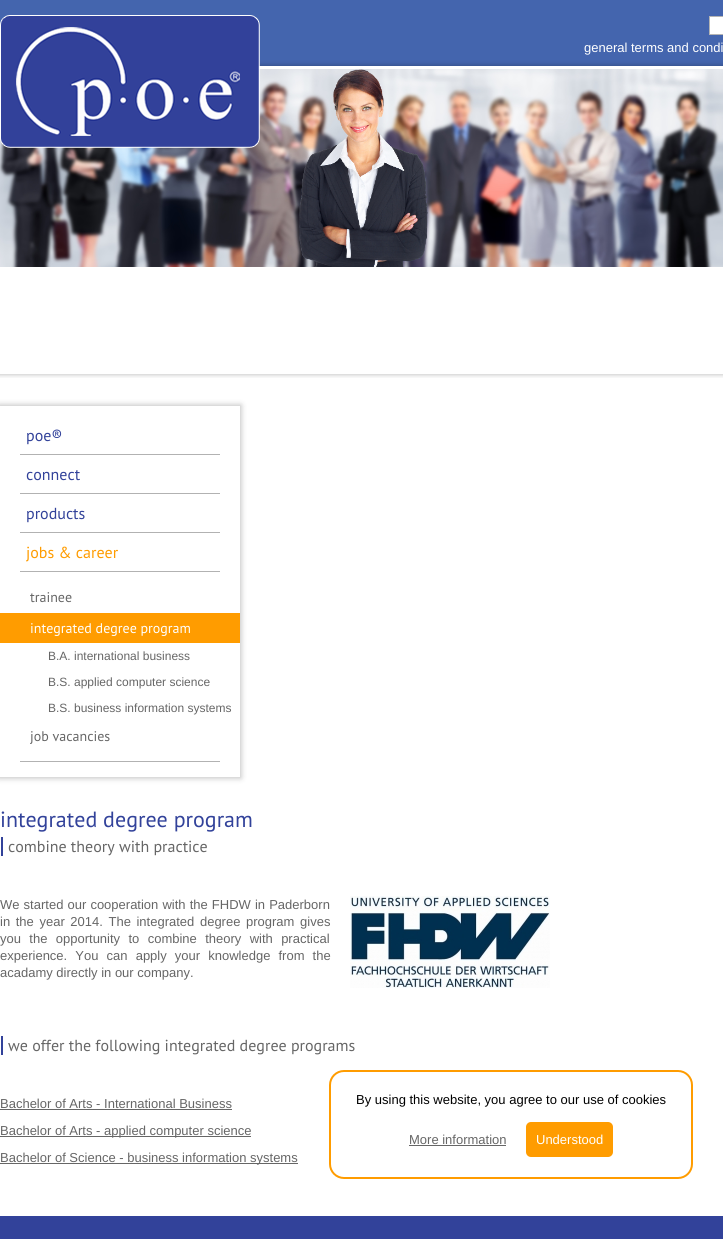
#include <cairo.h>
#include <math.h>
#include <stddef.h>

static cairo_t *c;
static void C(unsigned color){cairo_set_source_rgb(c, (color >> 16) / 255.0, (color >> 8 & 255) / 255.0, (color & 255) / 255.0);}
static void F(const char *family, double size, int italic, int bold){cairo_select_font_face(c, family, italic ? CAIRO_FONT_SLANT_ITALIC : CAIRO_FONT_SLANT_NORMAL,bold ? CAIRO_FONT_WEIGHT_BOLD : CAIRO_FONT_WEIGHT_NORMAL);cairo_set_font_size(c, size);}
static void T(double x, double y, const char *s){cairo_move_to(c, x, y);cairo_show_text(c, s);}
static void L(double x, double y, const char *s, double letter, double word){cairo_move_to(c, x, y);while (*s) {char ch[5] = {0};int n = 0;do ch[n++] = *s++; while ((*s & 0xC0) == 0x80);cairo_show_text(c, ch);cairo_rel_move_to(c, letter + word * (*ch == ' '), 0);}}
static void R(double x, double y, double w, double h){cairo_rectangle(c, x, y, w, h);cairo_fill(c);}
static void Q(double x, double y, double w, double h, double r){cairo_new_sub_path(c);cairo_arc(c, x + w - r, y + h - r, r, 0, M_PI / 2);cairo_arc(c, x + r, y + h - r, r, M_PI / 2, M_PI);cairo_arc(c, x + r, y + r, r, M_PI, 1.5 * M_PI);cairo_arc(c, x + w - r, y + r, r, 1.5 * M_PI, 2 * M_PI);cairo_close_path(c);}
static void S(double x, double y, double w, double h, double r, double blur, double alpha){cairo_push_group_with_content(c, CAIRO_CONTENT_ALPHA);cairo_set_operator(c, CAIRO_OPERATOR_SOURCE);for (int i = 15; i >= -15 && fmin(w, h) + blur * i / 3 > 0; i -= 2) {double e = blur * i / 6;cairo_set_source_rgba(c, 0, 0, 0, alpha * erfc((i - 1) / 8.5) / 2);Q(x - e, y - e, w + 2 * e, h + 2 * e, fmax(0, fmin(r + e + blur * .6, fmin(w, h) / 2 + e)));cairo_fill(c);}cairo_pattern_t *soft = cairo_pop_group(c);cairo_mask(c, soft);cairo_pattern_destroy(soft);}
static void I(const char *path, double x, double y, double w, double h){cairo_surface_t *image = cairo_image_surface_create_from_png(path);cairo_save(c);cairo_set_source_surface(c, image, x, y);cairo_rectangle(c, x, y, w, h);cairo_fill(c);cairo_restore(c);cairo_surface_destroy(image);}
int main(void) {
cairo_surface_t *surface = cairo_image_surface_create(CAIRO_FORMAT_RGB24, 723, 1239);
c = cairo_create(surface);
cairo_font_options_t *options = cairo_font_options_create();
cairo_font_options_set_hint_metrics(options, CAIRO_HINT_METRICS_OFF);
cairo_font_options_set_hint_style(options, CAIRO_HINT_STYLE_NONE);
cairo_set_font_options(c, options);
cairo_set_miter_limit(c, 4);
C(0xffffff);
cairo_paint(c);
I("1.png",0,0,723,378);
I("3.png",0,69,723,198);
I("2.png",0,15,260,133);
C(0xffffff);
cairo_rectangle(c,709.5,16.5,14,18);
cairo_fill_preserve(c);
C(0xb4b4b4);
cairo_set_line_width(c,1);
cairo_stroke(c);
F("Liberation Sans",13,0,0);
C(0xffffff);
T(584,52,"general terms and condi");
Q(330,1071,362,107,14);
C(0xff9c00);
cairo_set_line_width(c,2);
cairo_stroke(c);
C(0x000000);
T(356,1104,"By using this website, you agree to our use of cookies");
C(0x666666);
T(409,1144,"More information");
R(409,1145,97,1);
C(0xff9c00);
Q(526,1122,87,35,5);
cairo_fill(c);
C(0xffffff);
T(536,1144,"Understood");
cairo_save(c);
cairo_set_fill_rule(c,CAIRO_FILL_RULE_EVEN_ODD);
cairo_new_path(c);
cairo_move_to(c,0,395);
cairo_line_to(c,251,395);
cairo_line_to(c,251,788);
cairo_line_to(c,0,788);
cairo_close_path(c);
cairo_move_to(c,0,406);
cairo_line_to(c,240,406);
cairo_line_to(c,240,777);
cairo_line_to(c,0,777);
cairo_close_path(c);
cairo_clip(c);
C(0x000000);
S(-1,405,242,373,0,3,.25);
cairo_restore(c);
C(0xb2b2b2);
R(20,454,200,1);
F("PT Sans",16,0,0);
C(0x32429a);
T(26,441,"poe®");
C(0xb2b2b2);
R(20,493,200,1);
C(0x32429a);
T(26,480,"connect");
C(0xb2b2b2);
R(20,532,200,1);
C(0x32429a);
T(26,519,"products");
C(0xb2b2b2);
R(20,571,200,1);
C(0xff9c00);
T(26,558,"jobs & career");
C(0xb2b2b2);
R(20,761,200,1);
F("PT Sans",14,0,0);
C(0x666666);
T(30,602,"trainee");
C(0xff9c00);
R(0,613,240,30);
C(0xffffff);
T(30,633,"integrated degree program");
F("Liberation Sans",12,0,0);
C(0x666666);
T(48,660,"B.A. international business");
T(48,686,"B.S. applied computer science");
T(48,712,"B.S. business information systems");
F("PT Sans",14,0,0);
T(30,741,"job vacancies");
F("PT Sans",22,0,0);
C(0x32429a);
T(0,827,"integrated degree program");
R(1,837,2,19);
F("PT Sans",16,0,0);
C(0x666666);
T(8,852,"combine theory with practice");
F("Liberation Sans",13,0,0);
L(0,909,"We started our cooperation with the FHDW in Paderborn",0,.5);
L(0,926,"in the year 2014. The integrated degree program gives",0,2);
L(0,943,"you the opportunity to combine theory with practical",0,4.75);
L(0,960,"experience. You can apply your knowledge from the",0,4.5);
T(0,977,"acadamy directly in our company.");
I("4.png",350,896,200,92);
C(0x32429a);
R(1,1036,2,19);
F("PT Sans",16,0,0);
C(0x666666);
T(8,1051,"we offer the following integrated degree programs");
F("Liberation Sans",13,0,0);
T(0,1108,"Bachelor of Arts - International Business");
R(0,1109,232,1);
R(0,1136,251,1);
T(0,1135,"Bachelor of Arts - applied computer science");
R(0,1163,298,1);
T(0,1162,"Bachelor of Science - business information systems");
C(0x32429a);
R(0,1216,723,23);
cairo_surface_write_to_png(surface, "o.png");
cairo_font_options_destroy(options);
cairo_destroy(c);
cairo_surface_destroy(surface);
return 0;
}
